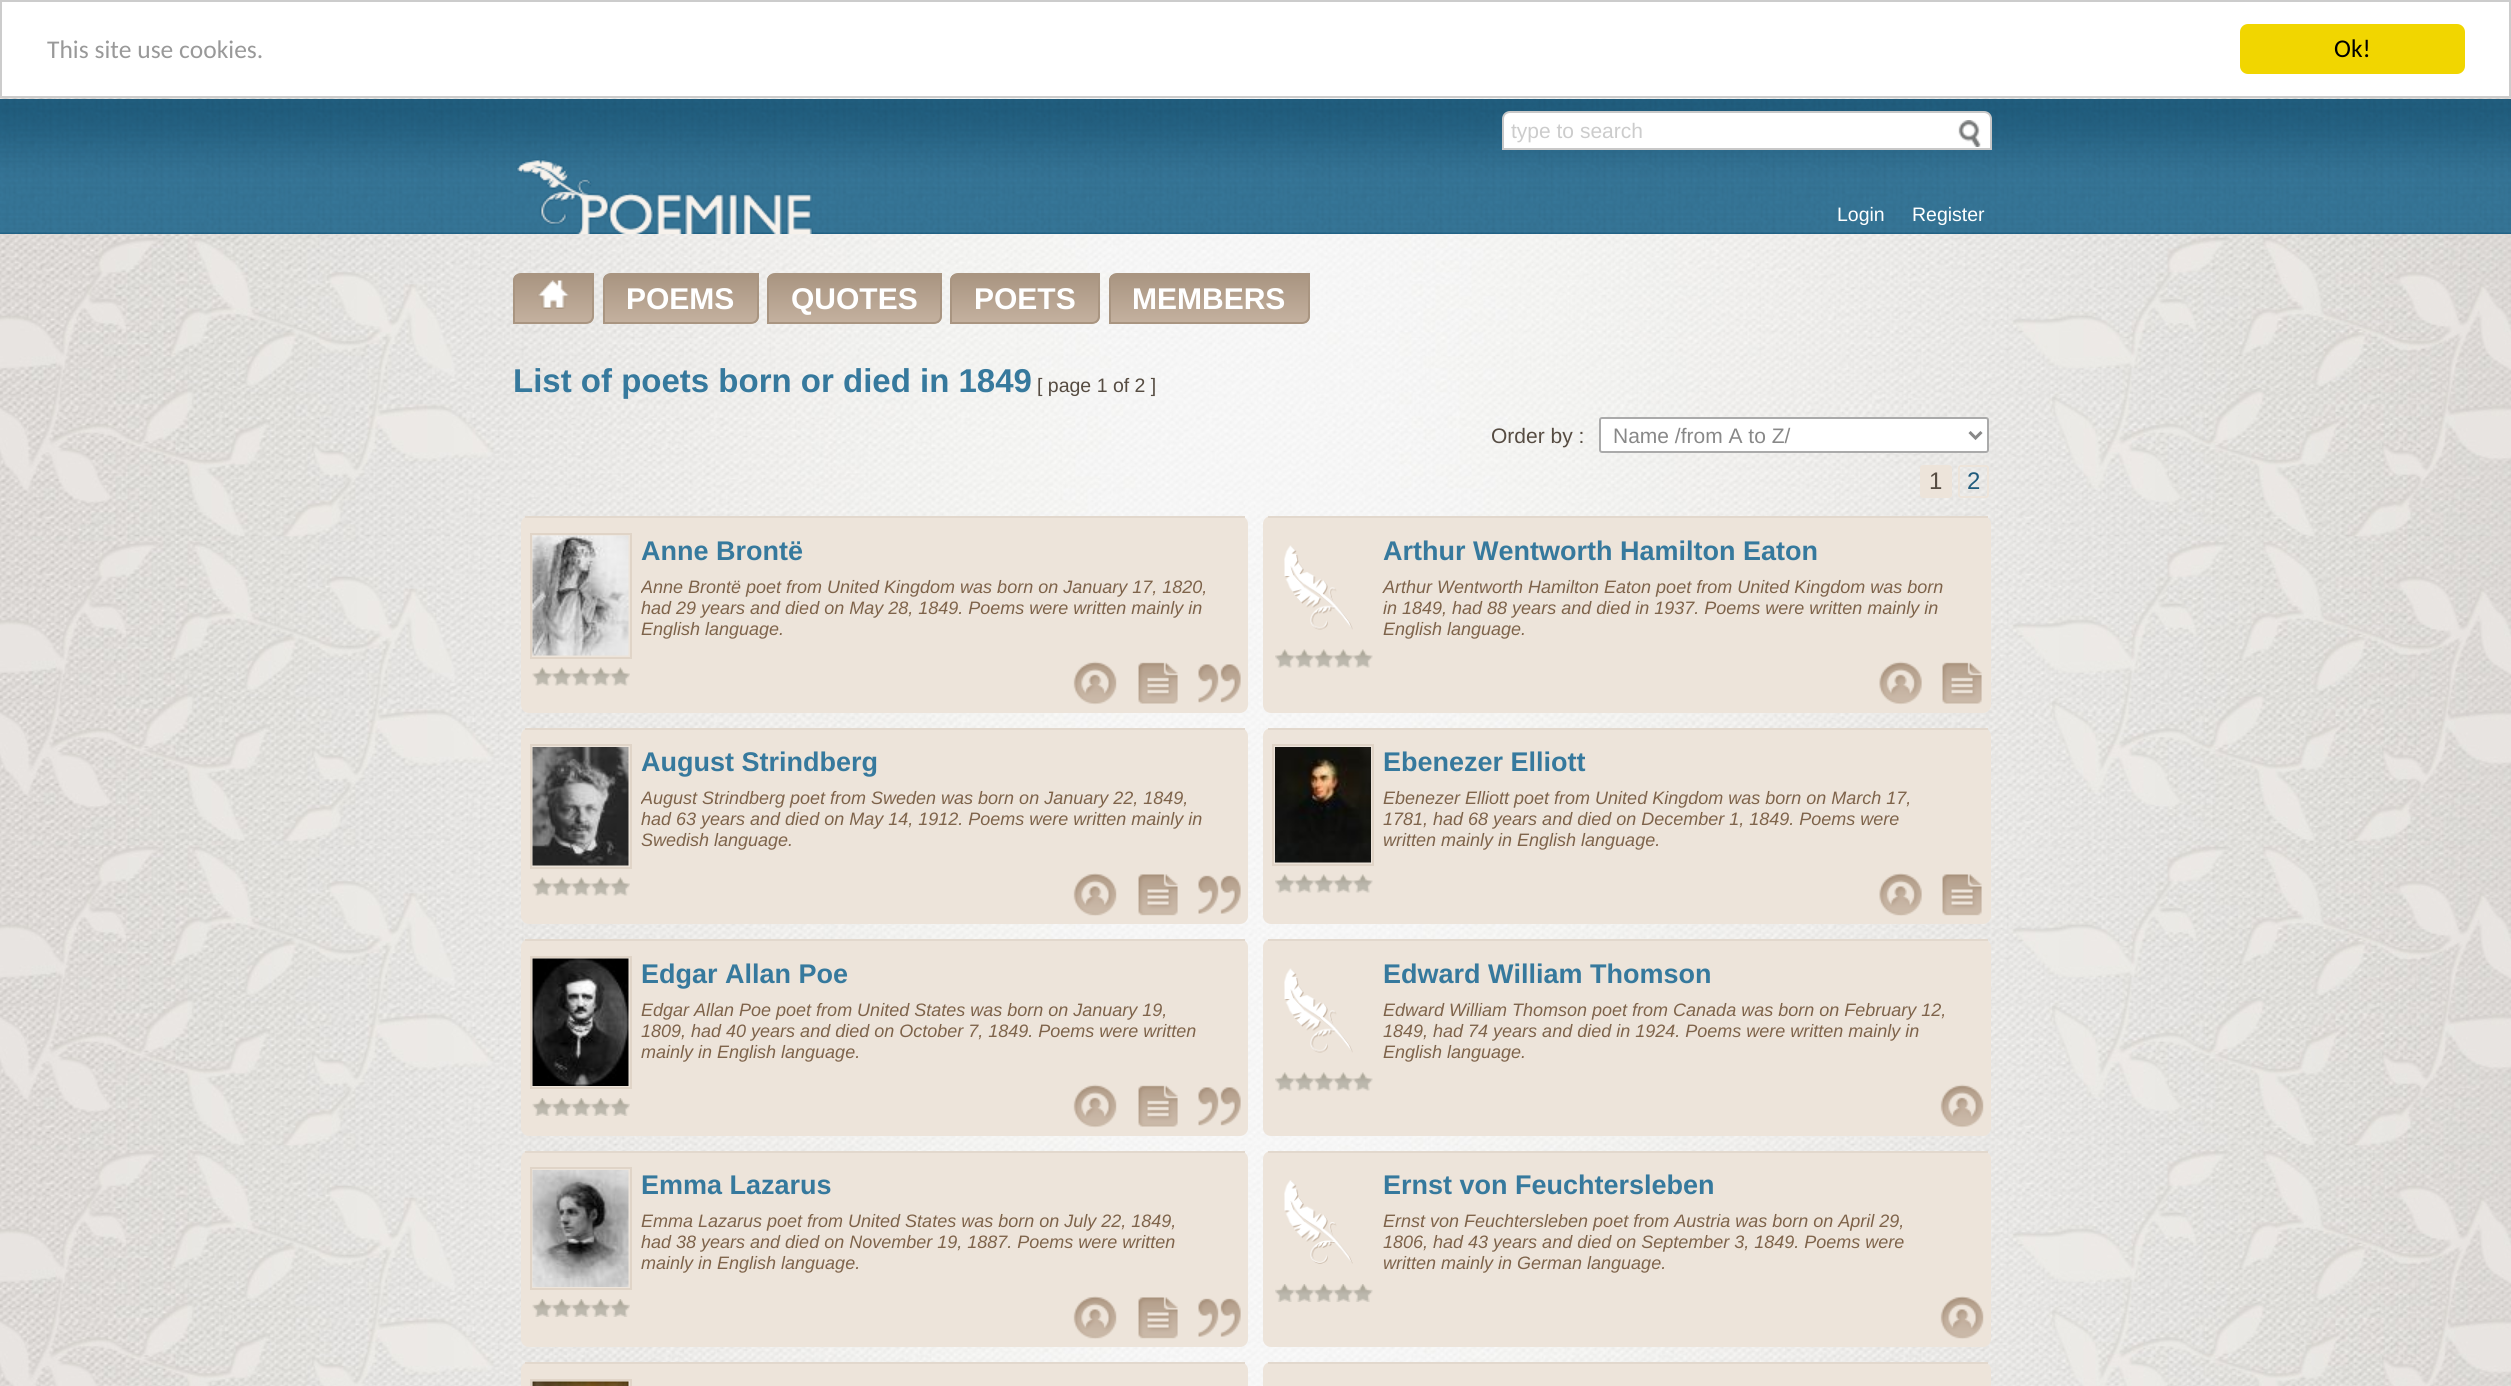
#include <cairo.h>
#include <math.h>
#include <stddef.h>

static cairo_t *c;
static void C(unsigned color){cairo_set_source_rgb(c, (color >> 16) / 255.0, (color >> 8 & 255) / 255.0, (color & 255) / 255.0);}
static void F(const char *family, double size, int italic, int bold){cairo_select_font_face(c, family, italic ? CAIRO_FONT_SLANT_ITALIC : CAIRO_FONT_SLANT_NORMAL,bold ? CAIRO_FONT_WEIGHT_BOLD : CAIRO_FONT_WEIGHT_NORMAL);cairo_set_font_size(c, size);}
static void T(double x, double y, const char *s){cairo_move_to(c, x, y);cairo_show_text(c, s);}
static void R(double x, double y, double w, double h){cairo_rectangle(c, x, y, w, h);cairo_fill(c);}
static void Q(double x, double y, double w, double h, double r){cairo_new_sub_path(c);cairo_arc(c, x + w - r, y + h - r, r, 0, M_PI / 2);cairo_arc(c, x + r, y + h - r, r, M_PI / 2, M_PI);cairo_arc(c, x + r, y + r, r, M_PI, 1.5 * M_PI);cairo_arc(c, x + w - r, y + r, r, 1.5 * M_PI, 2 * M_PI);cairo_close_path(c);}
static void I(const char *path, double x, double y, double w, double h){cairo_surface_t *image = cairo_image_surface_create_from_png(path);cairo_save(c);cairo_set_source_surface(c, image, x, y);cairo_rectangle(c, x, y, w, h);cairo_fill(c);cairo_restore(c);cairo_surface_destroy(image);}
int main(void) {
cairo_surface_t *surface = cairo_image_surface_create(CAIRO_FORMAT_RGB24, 2511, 1386);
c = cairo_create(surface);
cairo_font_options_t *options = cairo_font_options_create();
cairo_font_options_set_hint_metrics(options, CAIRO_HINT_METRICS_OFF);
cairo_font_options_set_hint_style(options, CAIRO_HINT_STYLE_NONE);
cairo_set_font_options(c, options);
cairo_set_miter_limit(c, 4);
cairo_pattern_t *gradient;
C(0xffffff);
cairo_paint(c);
I("1.png",0,98,2511,1288);
cairo_rectangle(c,1,1,2509,96);
C(0xcccccc);
cairo_stroke(c);
F("Carlito",25.5,0,0);
C(0x999999);
T(47,58,"This site use cookies.");
C(0xf1d600);
Q(2240,24,225,50,8);
cairo_fill(c);
C(0x000000);
T(2334,57,"Ok!");
I("2.png",0,99,2511,135);
C(0xffffff);
cairo_new_path(c);
cairo_move_to(c,1510,112);
cairo_line_to(c,1984,112);
cairo_curve_to(c,1988,112,1991,115,1991,119);
cairo_line_to(c,1991,149);
cairo_line_to(c,1503,149);
cairo_line_to(c,1503,119);
cairo_curve_to(c,1503,115,1506,112,1510,112);
cairo_close_path(c);
cairo_fill_preserve(c);
C(0xc8c8c8);
cairo_stroke(c);
F("Liberation Sans",21,0,0);
C(0xcccccc);
T(1511,138,"type to search");
I("3.png",1958,120,23,27);
I("4.png",516,159,297,75);
F("Liberation Sans",19.5,0,0);
C(0xffffff);
T(1837,221,"Login");
T(1912,221,"Register");
cairo_save(c);
cairo_new_path(c);
cairo_move_to(c,521,273);
cairo_line_to(c,594,273);
cairo_line_to(c,594,316);
cairo_curve_to(c,594,320.5,590.5,324,586,324);
cairo_line_to(c,513,324);
cairo_line_to(c,513,281);
cairo_curve_to(c,513,276.5,516.5,273,521,273);
cairo_close_path(c);
cairo_clip(c);
gradient = cairo_pattern_create_linear(554,275,554,323);
cairo_pattern_add_color_stop_rgba(gradient,0,0.663,0.584,0.506,1);
cairo_pattern_add_color_stop_rgba(gradient,1,0.769,0.694,0.624,1);
cairo_set_source(c,gradient);
cairo_pattern_destroy(gradient);
R(513,275,81,48);
cairo_restore(c);
cairo_new_path(c);
cairo_move_to(c,521,274);
cairo_line_to(c,593,274);
cairo_line_to(c,593,316);
cairo_curve_to(c,593,320,590,323,586,323);
cairo_line_to(c,514,323);
cairo_line_to(c,514,281);
cairo_curve_to(c,514,277,517,274,521,274);
cairo_close_path(c);
C(0xa99581);
cairo_stroke(c);
I("5.png",537,280,32,29);
cairo_save(c);
cairo_new_path(c);
cairo_move_to(c,611,273);
cairo_line_to(c,759,273);
cairo_line_to(c,759,316);
cairo_curve_to(c,759,320.5,755.5,324,751,324);
cairo_line_to(c,603,324);
cairo_line_to(c,603,281);
cairo_curve_to(c,603,276.5,606.5,273,611,273);
cairo_close_path(c);
cairo_clip(c);
gradient = cairo_pattern_create_linear(681,275,681,323);
cairo_pattern_add_color_stop_rgba(gradient,0,0.663,0.584,0.506,1);
cairo_pattern_add_color_stop_rgba(gradient,1,0.769,0.694,0.624,1);
cairo_set_source(c,gradient);
cairo_pattern_destroy(gradient);
R(603,275,156,48);
cairo_restore(c);
cairo_new_path(c);
cairo_move_to(c,611,274);
cairo_line_to(c,758,274);
cairo_line_to(c,758,316);
cairo_curve_to(c,758,320,755,323,751,323);
cairo_line_to(c,604,323);
cairo_line_to(c,604,281);
cairo_curve_to(c,604,277,607,274,611,274);
cairo_close_path(c);
cairo_stroke(c);
F("Liberation Sans",30,0,1);
C(0xffffff);
T(626,309,"POEMS");
cairo_save(c);
cairo_new_path(c);
cairo_move_to(c,775,273);
cairo_line_to(c,942,273);
cairo_line_to(c,942,316);
cairo_curve_to(c,942,320.5,938.5,324,934,324);
cairo_line_to(c,767,324);
cairo_line_to(c,767,281);
cairo_curve_to(c,767,276.5,770.5,273,775,273);
cairo_close_path(c);
cairo_clip(c);
gradient = cairo_pattern_create_linear(854,275,854,323);
cairo_pattern_add_color_stop_rgba(gradient,0,0.663,0.584,0.506,1);
cairo_pattern_add_color_stop_rgba(gradient,1,0.769,0.694,0.624,1);
cairo_set_source(c,gradient);
cairo_pattern_destroy(gradient);
R(767,275,175,48);
cairo_restore(c);
cairo_new_path(c);
cairo_move_to(c,775,274);
cairo_line_to(c,941,274);
cairo_line_to(c,941,316);
cairo_curve_to(c,941,320,938,323,934,323);
cairo_line_to(c,768,323);
cairo_line_to(c,768,281);
cairo_curve_to(c,768,277,771,274,775,274);
cairo_close_path(c);
C(0xa99581);
cairo_stroke(c);
C(0xffffff);
T(791,309,"QUOTES");
cairo_save(c);
cairo_new_path(c);
cairo_move_to(c,958,273);
cairo_line_to(c,1100,273);
cairo_line_to(c,1100,316);
cairo_curve_to(c,1100,320.5,1096.5,324,1092,324);
cairo_line_to(c,950,324);
cairo_line_to(c,950,281);
cairo_curve_to(c,950,276.5,953.5,273,958,273);
cairo_close_path(c);
cairo_clip(c);
gradient = cairo_pattern_create_linear(1025,275,1025,323);
cairo_pattern_add_color_stop_rgba(gradient,0,0.663,0.584,0.506,1);
cairo_pattern_add_color_stop_rgba(gradient,1,0.769,0.694,0.624,1);
cairo_set_source(c,gradient);
cairo_pattern_destroy(gradient);
R(950,275,150,48);
cairo_restore(c);
cairo_new_path(c);
cairo_move_to(c,958,274);
cairo_line_to(c,1099,274);
cairo_line_to(c,1099,316);
cairo_curve_to(c,1099,320,1096,323,1092,323);
cairo_line_to(c,951,323);
cairo_line_to(c,951,281);
cairo_curve_to(c,951,277,954,274,958,274);
cairo_close_path(c);
C(0xa99581);
cairo_stroke(c);
C(0xffffff);
T(974,309,"POETS");
cairo_save(c);
cairo_new_path(c);
cairo_move_to(c,1117,273);
cairo_line_to(c,1310,273);
cairo_line_to(c,1310,316);
cairo_curve_to(c,1310,320.5,1306.5,324,1302,324);
cairo_line_to(c,1109,324);
cairo_line_to(c,1109,281);
cairo_curve_to(c,1109,276.5,1112.5,273,1117,273);
cairo_close_path(c);
cairo_clip(c);
gradient = cairo_pattern_create_linear(1209,275,1209,323);
cairo_pattern_add_color_stop_rgba(gradient,0,0.663,0.584,0.506,1);
cairo_pattern_add_color_stop_rgba(gradient,1,0.769,0.694,0.624,1);
cairo_set_source(c,gradient);
cairo_pattern_destroy(gradient);
R(1109,275,201,48);
cairo_restore(c);
cairo_new_path(c);
cairo_move_to(c,1117,274);
cairo_line_to(c,1309,274);
cairo_line_to(c,1309,316);
cairo_curve_to(c,1309,320,1306,323,1302,323);
cairo_line_to(c,1110,323);
cairo_line_to(c,1110,281);
cairo_curve_to(c,1110,277,1113,274,1117,274);
cairo_close_path(c);
C(0xa99581);
cairo_stroke(c);
C(0xffffff);
T(1132,309,"MEMBERS");
F("Liberation Sans",33,0,1);
C(0x36799d);
T(513,392,"List of poets born or died in 1849");
F("Liberation Sans",19.5,0,0);
C(0x564c42);
T(1037,392,"[ page 1 of 2 ]");
F("Liberation Sans",21,0,0);
T(1491,443,"Order by :");
C(0xffffff);
Q(1600,418,388,34,2);
cairo_fill_preserve(c);
C(0xaaaaaa);
cairo_stroke(c);
cairo_new_path(c);
cairo_move_to(c,1969.5,432);
cairo_line_to(c,1975.5,438);
cairo_line_to(c,1981.5,432);
C(0x888888);
cairo_set_line_width(c,3);
cairo_stroke(c);
T(1613,443,"Name /from A to Z/");
C(0xede4da);
Q(1921,466,30,31,2);
cairo_fill_preserve(c);
cairo_set_line_width(c,2);
cairo_stroke(c);
F("Liberation Sans",24,0,0);
C(0x564c42);
T(1929,489,"1");
Q(1959,466,29,31,2);
C(0xede4da);
cairo_stroke(c);
C(0x205c7d);
T(1967,489,"2");
C(0xede4da);
Q(521,516,727,197,8);
cairo_fill(c);
C(0xe2d8cd);
R(525,516,720,2);
cairo_rectangle(c,531,534,100,124);
C(0xe0d4c7);
cairo_stroke(c);
I("6.png",532,535,97,121);
I("7.png",532,667,20,19);
I("8.png",552,667,20,19);
I("9.png",571,667,20,19);
I("10.png",591,667,20,19);
I("9.png",610,667,20,19);
F("Liberation Sans",27,0,1);
C(0x36799d);
T(641,560,"Anne Brontë");
cairo_save(c);
cairo_rectangle(c,641,533,570,156);
cairo_clip(c);
F("Liberation Sans",18,1,0);
C(0x7e634a);
T(641,593,"Anne Brontë");
cairo_restore(c);
F("Liberation Sans",18,1,0);
C(0x7e634a);
T(746,593,"poet from United Kingdom was born on January 17, 1820,");
T(641,614,"had 29 years and died on May 28, 1849. Poems were written mainly in");
T(641,635,"English language.");
I("11.png",1073,661,44,44);
I("12.png",1138,662,40,42);
I("13.png",1198,664,43,39);
C(0xede4da);
Q(1263,516,728,197,8);
cairo_fill(c);
C(0xe2d8cd);
R(1268,516,720,2);
I("14.png",1284,545,69,85);
I("15.png",1275,649,20,19);
I("9.png",1294,649,20,19);
I("8.png",1314,649,20,19);
I("9.png",1333,649,20,19);
I("10.png",1353,649,20,19);
F("Liberation Sans",27,0,1);
C(0x36799d);
T(1383,560,"Arthur Wentworth Hamilton Eaton");
F("Liberation Sans",18,1,0);
C(0x7e634a);
T(1383,593,"Arthur Wentworth Hamilton Eaton poet from United Kingdom was born");
T(1383,614,"in 1849, had 88 years and died in 1937. Poems were written mainly in");
T(1383,635,"English language.");
I("16.png",1879,661,43,44);
I("12.png",1942,662,40,42);
C(0xede4da);
Q(521,728,727,196,8);
cairo_fill(c);
C(0xe2d8cd);
R(525,728,720,2);
cairo_rectangle(c,531,745,100,123);
C(0xe0d4c7);
cairo_stroke(c);
I("17.png",532,747,97,119);
I("7.png",532,877,20,19);
I("8.png",552,877,20,19);
I("9.png",571,877,20,19);
I("10.png",591,877,20,19);
I("9.png",610,877,20,19);
F("Liberation Sans",27,0,1);
C(0x36799d);
T(641,771,"August Strindberg");
cairo_save(c);
cairo_rectangle(c,641,744,570,155);
cairo_clip(c);
F("Liberation Sans",18,1,0);
C(0x7e634a);
T(641,804,"August Strindberg");
cairo_restore(c);
F("Liberation Sans",18,1,0);
C(0x7e634a);
T(790,804,"poet from Sweden was born on January 22, 1849,");
T(641,825,"had 63 years and died on May 14, 1912. Poems were written mainly in");
T(641,846,"Swedish language.");
I("18.png",1073,873,44,43);
I("19.png",1138,874,40,42);
I("20.png",1198,875,43,39);
C(0xede4da);
Q(1263,728,728,196,8);
cairo_fill(c);
C(0xe2d8cd);
R(1268,728,720,2);
cairo_rectangle(c,1273,745,100,120);
C(0xe0d4c7);
cairo_stroke(c);
I("21.png",1275,747,96,116);
I("15.png",1275,874,20,19);
I("9.png",1294,874,20,19);
I("8.png",1314,874,20,19);
I("9.png",1333,874,20,19);
I("10.png",1353,874,20,19);
F("Liberation Sans",27,0,1);
C(0x36799d);
T(1383,771,"Ebenezer Elliott");
F("Liberation Sans",18,1,0);
C(0x7e634a);
T(1383,804,"Ebenezer Elliott poet from United Kingdom was born on March 17,");
T(1383,825,"1781, had 68 years and died on December 1, 1849. Poems were");
T(1383,846,"written mainly in English language.");
I("22.png",1879,873,43,43);
I("19.png",1942,874,40,42);
C(0xede4da);
Q(521,939,727,197,8);
cairo_fill(c);
C(0xe2d8cd);
R(525,939,720,2);
cairo_rectangle(c,531,957,100,131);
C(0xe0d4c7);
cairo_stroke(c);
I("23.png",532,958,97,128);
I("24.png",532,1098,20,18);
I("25.png",552,1098,20,18);
I("26.png",571,1098,20,18);
I("27.png",591,1098,20,18);
I("26.png",610,1098,20,18);
F("Liberation Sans",27,0,1);
C(0x36799d);
T(641,983,"Edgar Allan Poe");
F("Liberation Sans",18,1,0);
C(0x7e634a);
T(641,1016,"Edgar Allan Poe poet from United States was born on January 19,");
T(641,1037,"1809, had 40 years and died on October 7, 1849. Poems were written");
T(641,1058,"mainly in English language.");
I("11.png",1073,1084,44,44);
I("12.png",1138,1085,40,42);
I("13.png",1198,1087,43,39);
C(0xede4da);
Q(1263,939,728,197,8);
cairo_fill(c);
C(0xe2d8cd);
R(1268,939,720,2);
I("14.png",1284,968,69,85);
I("15.png",1275,1072,20,19);
I("9.png",1294,1072,20,19);
I("8.png",1314,1072,20,19);
I("9.png",1333,1072,20,19);
I("10.png",1353,1072,20,19);
F("Liberation Sans",27,0,1);
C(0x36799d);
T(1383,983,"Edward William Thomson");
F("Liberation Sans",18,1,0);
C(0x7e634a);
T(1383,1016,"Edward William Thomson poet from Canada was born on February 12,");
T(1383,1037,"1849, had 74 years and died in 1924. Poems were written mainly in");
T(1383,1058,"English language.");
I("28.png",1940,1084,44,44);
C(0xede4da);
Q(521,1151,727,196,8);
cairo_fill(c);
C(0xe2d8cd);
R(525,1151,720,2);
cairo_rectangle(c,531,1168,100,121);
C(0xe0d4c7);
cairo_stroke(c);
I("29.png",532,1170,97,117);
I("24.png",532,1299,20,18);
I("25.png",552,1299,20,18);
I("26.png",571,1299,20,18);
I("27.png",591,1299,20,18);
I("26.png",610,1299,20,18);
F("Liberation Sans",27,0,1);
C(0x36799d);
T(641,1194,"Emma Lazarus");
F("Liberation Sans",18,1,0);
C(0x7e634a);
T(641,1227,"Emma Lazarus poet from United States was born on July 22, 1849,");
T(641,1248,"had 38 years and died on November 19, 1887. Poems were written");
T(641,1269,"mainly in English language.");
I("18.png",1073,1296,44,43);
I("19.png",1138,1297,40,42);
I("20.png",1198,1298,43,39);
C(0xede4da);
Q(1263,1151,728,196,8);
cairo_fill(c);
C(0xe2d8cd);
R(1268,1151,720,2);
I("30.png",1284,1180,69,84);
I("31.png",1275,1284,20,18);
I("26.png",1294,1284,20,18);
I("25.png",1314,1284,20,18);
I("26.png",1333,1284,20,18);
I("27.png",1353,1284,20,18);
F("Liberation Sans",27,0,1);
C(0x36799d);
T(1383,1194,"Ernst von Feuchtersleben");
F("Liberation Sans",18,1,0);
C(0x7e634a);
T(1383,1227,"Ernst von Feuchtersleben poet from Austria was born on April 29,");
T(1383,1248,"1806, had 43 years and died on September 3, 1849. Poems were");
T(1383,1269,"written mainly in German language.");
I("32.png",1940,1296,44,43);
C(0xede4da);
Q(521,1362,727,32,8);
cairo_fill(c);
C(0xe2d8cd);
R(525,1362,720,2);
cairo_rectangle(c,531,1380,100,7);
C(0xe0d4c7);
cairo_stroke(c);
I("33.png",532,1381,97,5);
C(0xede4da);
Q(1263,1362,728,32,8);
cairo_fill(c);
C(0xe2d8cd);
R(1268,1362,720,2);
cairo_surface_write_to_png(surface, "o.png");
cairo_font_options_destroy(options);
cairo_destroy(c);
cairo_surface_destroy(surface);
return 0;
}
